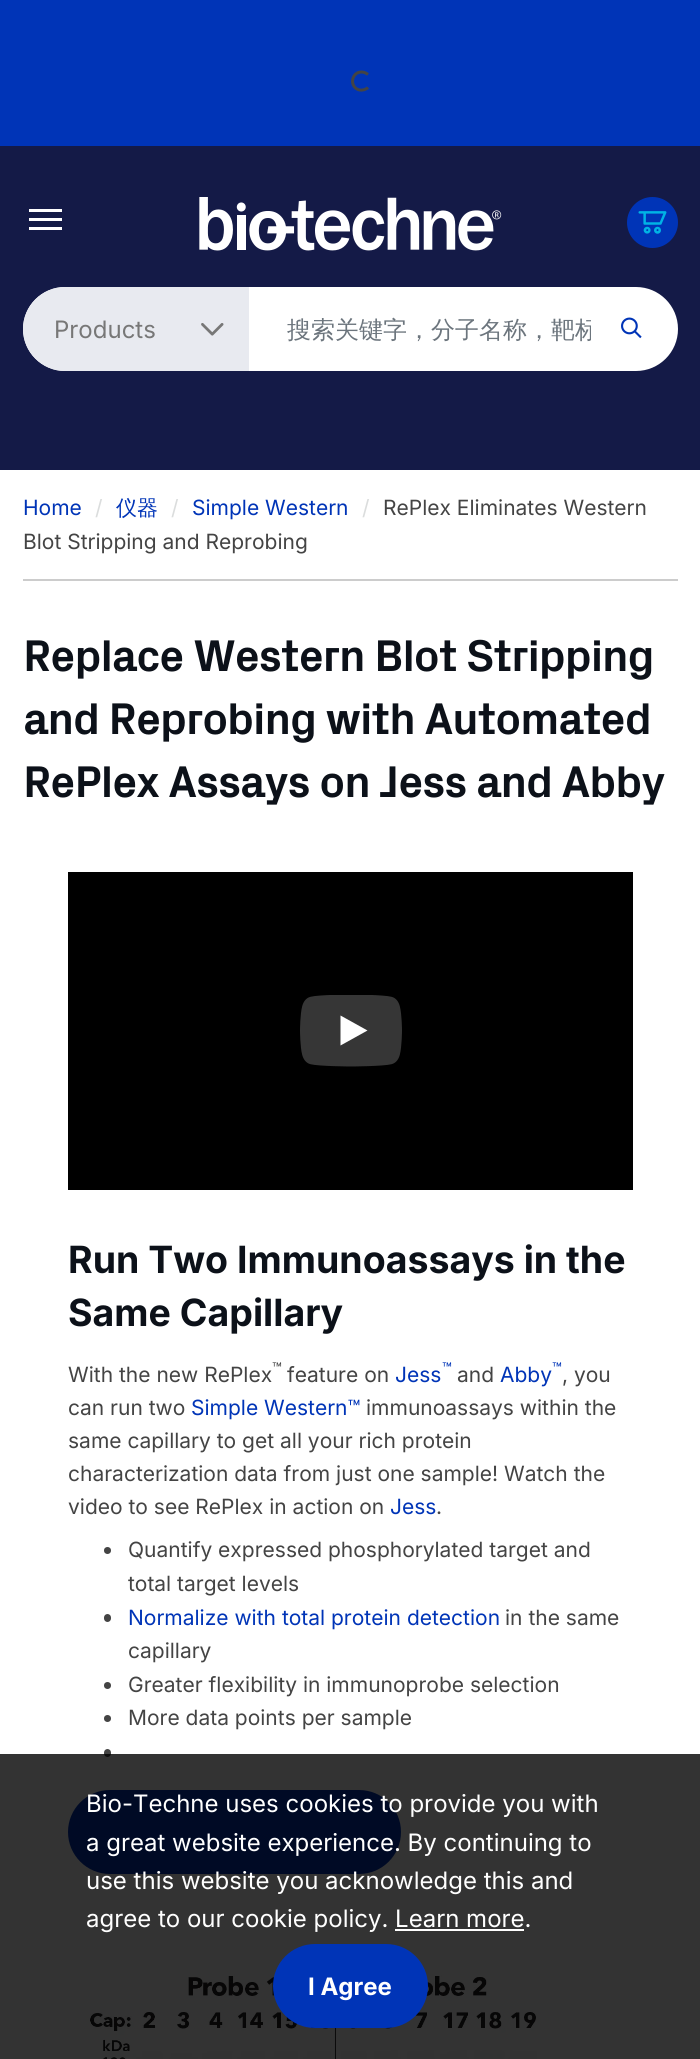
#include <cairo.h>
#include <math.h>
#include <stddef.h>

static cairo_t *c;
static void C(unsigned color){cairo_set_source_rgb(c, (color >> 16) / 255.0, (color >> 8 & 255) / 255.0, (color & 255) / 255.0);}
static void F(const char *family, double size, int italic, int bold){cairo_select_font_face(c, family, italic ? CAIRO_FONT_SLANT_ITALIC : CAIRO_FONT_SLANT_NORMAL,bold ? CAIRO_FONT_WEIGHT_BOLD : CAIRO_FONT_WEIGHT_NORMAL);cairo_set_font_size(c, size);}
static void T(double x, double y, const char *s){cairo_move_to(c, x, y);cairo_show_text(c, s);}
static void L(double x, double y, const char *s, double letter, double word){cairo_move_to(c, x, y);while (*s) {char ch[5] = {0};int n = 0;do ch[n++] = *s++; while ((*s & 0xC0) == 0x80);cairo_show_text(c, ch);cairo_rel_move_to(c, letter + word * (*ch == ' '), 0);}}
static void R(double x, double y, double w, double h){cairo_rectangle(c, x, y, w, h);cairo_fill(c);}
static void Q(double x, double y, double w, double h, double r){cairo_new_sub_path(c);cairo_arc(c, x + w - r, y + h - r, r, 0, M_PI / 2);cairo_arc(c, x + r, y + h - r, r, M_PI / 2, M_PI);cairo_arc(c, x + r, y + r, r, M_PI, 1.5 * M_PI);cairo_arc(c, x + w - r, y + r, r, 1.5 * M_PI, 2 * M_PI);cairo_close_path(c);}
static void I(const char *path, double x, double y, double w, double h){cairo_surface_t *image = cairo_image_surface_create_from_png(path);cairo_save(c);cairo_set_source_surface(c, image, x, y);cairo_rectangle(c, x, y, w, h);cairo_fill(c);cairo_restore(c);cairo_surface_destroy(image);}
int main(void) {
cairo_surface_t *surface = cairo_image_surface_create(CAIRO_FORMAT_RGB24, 700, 2059);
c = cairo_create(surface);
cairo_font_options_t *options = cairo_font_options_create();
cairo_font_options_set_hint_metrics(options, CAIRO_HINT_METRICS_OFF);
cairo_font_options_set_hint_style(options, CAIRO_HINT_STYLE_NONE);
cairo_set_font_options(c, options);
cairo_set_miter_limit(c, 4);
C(0xffffff);
cairo_paint(c);
C(0x0034b7);
R(0,0,700,146);
cairo_new_path(c);
cairo_move_to(c,368,87.5);
cairo_curve_to(c,366,89.5,362.5,90.5,359.5,90);
cairo_curve_to(c,349,87.5,351,72,361.5,72);
cairo_curve_to(c,364,72,366,73,368,74.5);
C(0x444444);
cairo_set_line_width(c,3);
cairo_stroke(c);
C(0x141a47);
R(0,146,700,324);
C(0xffffff);
R(29,209,33,3);
R(29,218,33,3);
R(29,227,33,3);
I("1.png",199,197,303,54);
C(0x0034b7);
cairo_arc(c,652.5,222.5,25.5,0,2 * M_PI);
cairo_fill(c);
I("2.png",638,211,29,23);
C(0xffffff);
Q(23,287,655,84,42);
cairo_fill(c);
C(0xe8eaf0);
cairo_new_path(c);
cairo_move_to(c,65,287);
cairo_line_to(c,249,287);
cairo_line_to(c,249,371);
cairo_line_to(c,65,371);
cairo_curve_to(c,42,371,23,352,23,329);
cairo_curve_to(c,23,306,42,287,65,287);
cairo_close_path(c);
cairo_fill(c);
I("3.png",201,323,23,13);
F("Inter",24,0,0);
C(0x777777);
T(54,338,"Products");
cairo_save(c);
cairo_rectangle(c,287,314,304,33);
cairo_clip(c);
F("WenQuanYi Zen Hei Medium",24,0,0);
C(0x6c757d);
T(287,338,"搜索关键字，分子名称，靶标");
cairo_restore(c);
I("4.png",621,317,21,22);
C(0xcccccc);
R(23,579,655,2);
F("Inter",21,0,0);
C(0x0034b7);
T(23,515,"Home");
C(0xdbdddd);
T(95,515,"/");
F("WenQuanYi Zen Hei Medium",21,0,0);
C(0x0034b7);
T(116,515,"仪器");
F("Inter",21,0,0);
C(0xdbdddd);
T(171,515,"/");
C(0x0034b7);
T(192,515,"Simple Western");
C(0xdbdddd);
T(362,515,"/");
C(0x444444);
T(383,515,"RePlex Eliminates Western");
T(23,549,"Blot Stripping and Reprobing");
F("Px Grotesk",45,0,1);
C(0x0c1119);
L(23,671,"Replace Western Blot Stripping",-1.1,0);
L(23,734,"and Reprobing with Automated",-1.1,0);
L(23,797,"RePlex Assays on Jess and Abby",-1.1,0);
C(0x000000);
R(68,872,565,318);
I("5.png",300,995,102,72);
F("Inter",37.5,0,1);
C(0x0c1119);
T(68,1273,"Run Two Immunoassays in the");
T(68,1326,"Same Capillary");
F("Inter",16,0,0);
C(0x444444);
T(272,1374,"™");
C(0x0034b7);
T(442,1374,"™");
T(552,1374,"™");
F("Inter",21,0,0);
C(0x444444);
T(68,1382,"With the new RePlex");
T(287,1382,"feature on");
C(0x0034b7);
T(395,1382,"Jess");
C(0x444444);
T(457,1382,"and");
C(0x0034b7);
T(500,1382,"Abby");
C(0x444444);
T(562,1382,", you");
T(68,1415,"can run two");
C(0x0034b7);
T(191,1415,"Simple Western™");
C(0x444444);
T(366,1415,"immunoassays within the");
T(68,1448,"same capillary to get all your rich protein");
T(68,1481,"characterization data from just one sample! Watch the");
T(68,1514,"video to see RePlex in action on");
C(0x0034b7);
T(390,1514,"Jess");
C(0x444444);
T(436,1514,".");
cairo_new_path(c);
cairo_arc(c,107.5,1550.5,3.5,0,2 * M_PI);
cairo_fill(c);
T(128,1557,"Quantify expressed phosphorylated target and");
T(128,1591,"total target levels");
Q(104,1614,7,8,3.5);
cairo_fill(c);
C(0x0034b7);
T(128,1625,"Normalize with total protein detection");
C(0x444444);
T(505,1625,"in the same");
T(128,1658,"capillary");
cairo_new_path(c);
cairo_arc(c,107.5,1685.5,3.5,0,2 * M_PI);
cairo_fill(c);
T(128,1692,"Greater flexibility in immunoprobe selection");
cairo_new_path(c);
cairo_arc(c,107.5,1718.5,3.5,0,2 * M_PI);
cairo_fill(c);
T(128,1725,"More data points per sample");
Q(104,1749,7,8,3.5);
cairo_fill(c);
C(0x0034b7);
Q(68,1790,333,84,42);
cairo_fill(c);
I("6.png",90,1969,447,90);
cairo_set_source_rgba(c,0,0,0,0.8);
R(0,1754,700,305);
F("Inter",24,0,0);
C(0xffffff);
T(86,1812,"Bio-Techne uses cookies to provide you with");
T(86,1851,"a great website experience. By continuing to");
T(86,1889,"use this website you acknowledge this and");
T(86,1927,"agree to our cookie policy. Learn more.");
R(395,1929,129,2);
C(0x0034b7);
Q(273,1944,155,84,42);
cairo_fill(c);
F("Inter",24,0,1);
C(0xffffff);
T(308,1995,"I Agree");
cairo_surface_write_to_png(surface, "o.png");
cairo_font_options_destroy(options);
cairo_destroy(c);
cairo_surface_destroy(surface);
return 0;
}
